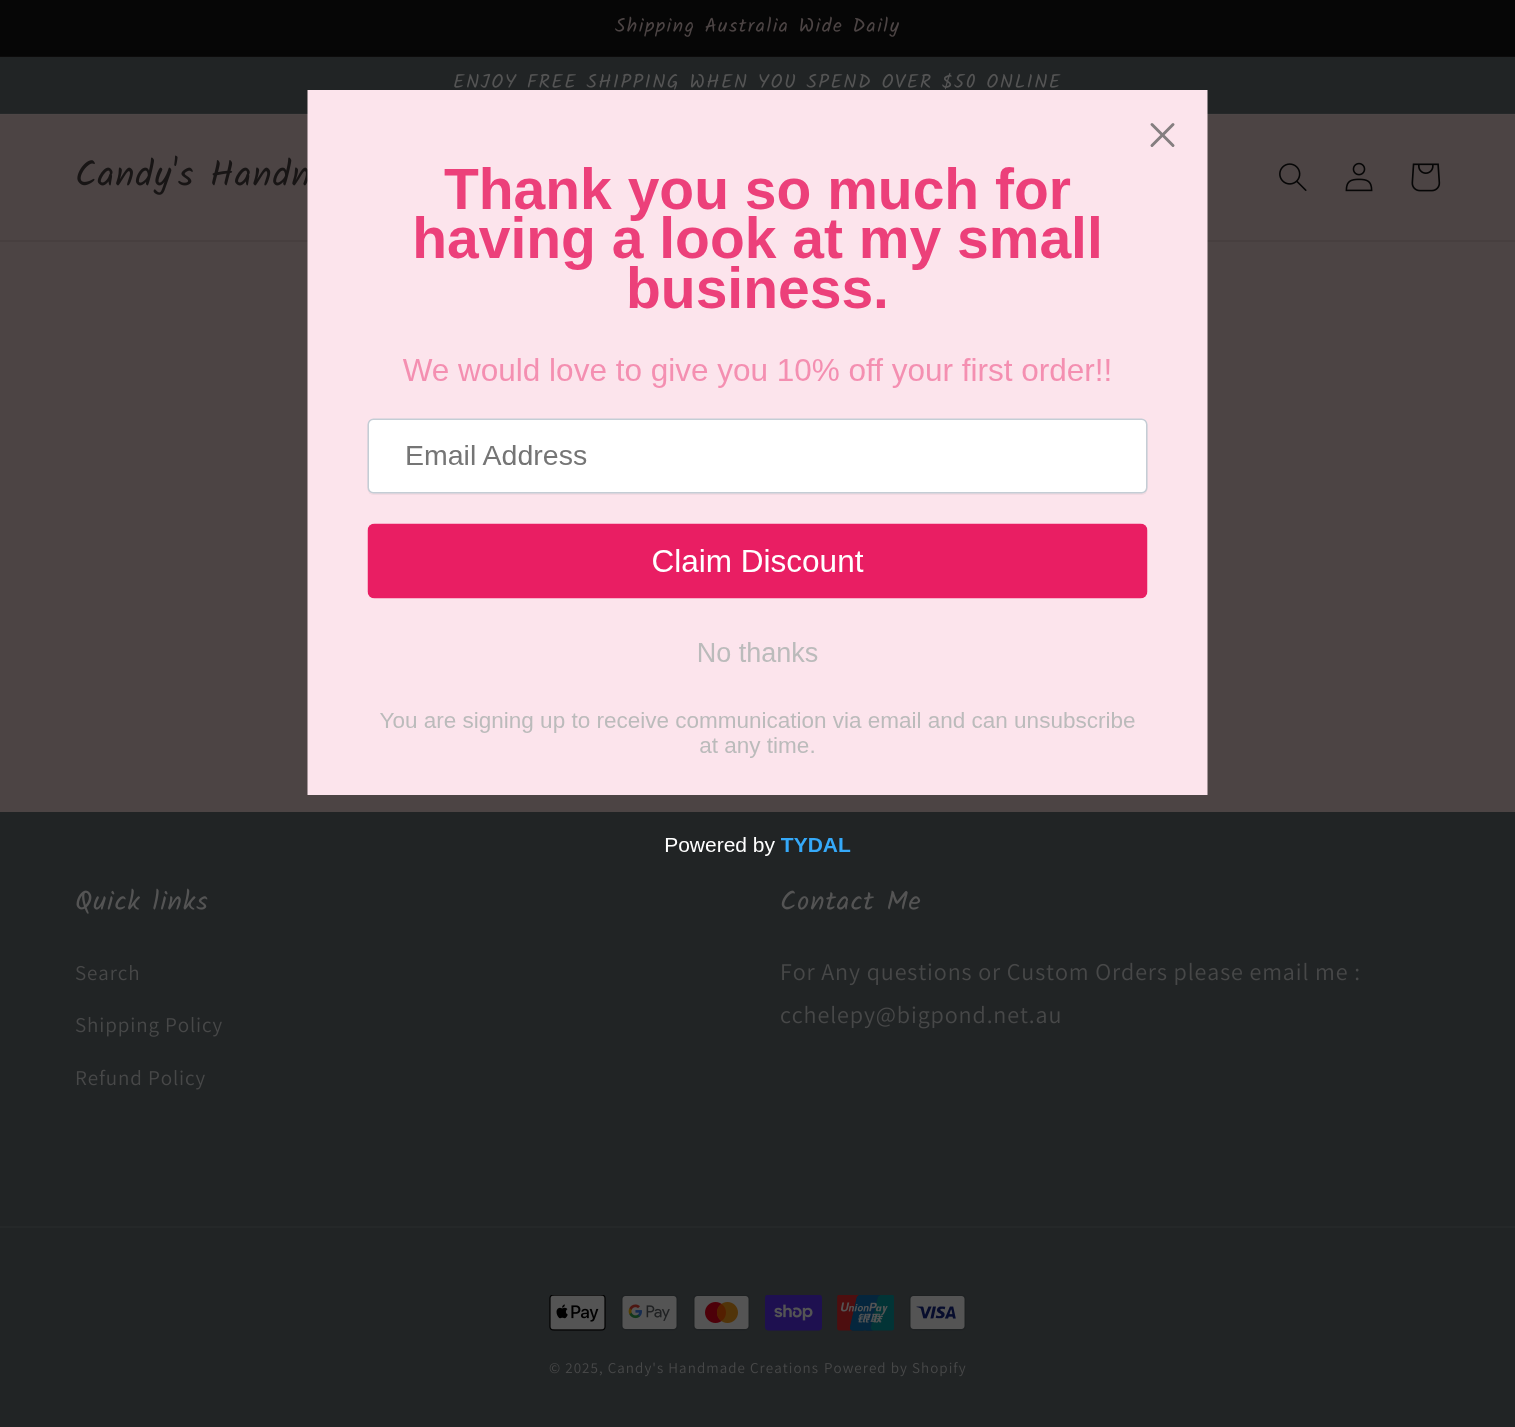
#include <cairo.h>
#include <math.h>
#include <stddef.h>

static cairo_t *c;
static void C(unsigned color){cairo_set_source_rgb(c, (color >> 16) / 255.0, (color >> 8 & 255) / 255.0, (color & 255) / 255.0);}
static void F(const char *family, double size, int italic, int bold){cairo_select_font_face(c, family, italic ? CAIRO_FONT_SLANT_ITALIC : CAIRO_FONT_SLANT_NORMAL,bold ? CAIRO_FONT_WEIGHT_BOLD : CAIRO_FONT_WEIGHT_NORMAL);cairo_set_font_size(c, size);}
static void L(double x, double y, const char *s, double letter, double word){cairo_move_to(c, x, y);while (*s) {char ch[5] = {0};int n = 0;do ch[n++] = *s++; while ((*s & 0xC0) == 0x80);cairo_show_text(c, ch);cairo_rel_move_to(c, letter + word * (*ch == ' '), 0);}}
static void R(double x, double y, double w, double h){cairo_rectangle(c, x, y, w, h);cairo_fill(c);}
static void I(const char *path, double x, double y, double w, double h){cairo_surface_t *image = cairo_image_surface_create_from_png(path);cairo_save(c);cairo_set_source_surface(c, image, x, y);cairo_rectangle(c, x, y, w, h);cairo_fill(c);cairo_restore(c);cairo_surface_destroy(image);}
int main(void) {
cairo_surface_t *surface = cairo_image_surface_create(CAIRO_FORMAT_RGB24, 1515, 1427);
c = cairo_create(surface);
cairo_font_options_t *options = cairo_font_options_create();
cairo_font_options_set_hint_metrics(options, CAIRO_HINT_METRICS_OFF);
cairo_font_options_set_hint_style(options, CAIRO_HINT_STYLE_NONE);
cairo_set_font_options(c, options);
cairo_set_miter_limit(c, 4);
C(0xe8cfcf);
cairo_paint(c);
C(0xead3d3);
R(0,114,1515,1);
C(0x121212);
R(0,0,1515,56);
C(0x232121);
R(0,56,1515,1);
F("Kalam",19.5,0,0);
C(0xe8cfcf);
L(615,32,"Shipping Australia Wide Daily",1.5,0);
C(0x636c70);
R(0,57,1515,56);
C(0x6f787b);
R(0,113,1515,1);
C(0xffffff);
L(453,88,"ENJOY FREE SHIPPING WHEN YOU SPEND OVER $50 ONLINE",1.5,0);
C(0xd7c0c0);
R(0,240,1515,2);
F("Kalam",36,0,0);
C(0x484141);
L(75,186,"Candy's Handm",.9,0);
I("2.png",1279,163,28,28);
I("3.png",1345,162,28,30);
I("4.png",1411,163,30,29);
C(0x636c70);
R(0,812,1515,615);
F("Kalam",27,0,0);
C(0xffffff);
L(75,910,"Quick links",.9,0);
F("Assistant",21,0,0);
C(0xd8dadb);
L(75,980,"Search",.9,0);
L(75,1032,"Shipping Policy",.9,0);
L(75,1085,"Refund Policy",.9,0);
F("Kalam",27,0,0);
C(0xffffff);
L(780,910,"Contact Me",.9,0);
F("Assistant",24,0,0);
C(0xd8dadb);
L(780,980,"For Any questions or Custom Orders please email me :",.9,0);
L(780,1023,"cchelepy@bigpond.net.au",.9,0);
C(0x6f787b);
R(0,1226,1515,2);
I("5.png",549,1295,57,36);
I("6.png",621,1295,57,36);
I("7.png",693,1295,57,36);
I("8.png",765,1295,57,36);
I("9.png",837,1295,57,36);
I("10.png",909,1295,57,36);
F("Assistant",15,0,0);
C(0xd8dadb);
L(549,1373,"© 2025, Candy's Handmade Creations",1.05,0);
L(824,1373,"Powered by Shopify",1.05,0);
I("1.png",0,0,1515,1427);
cairo_surface_write_to_png(surface, "o.png");
cairo_font_options_destroy(options);
cairo_destroy(c);
cairo_surface_destroy(surface);
return 0;
}
